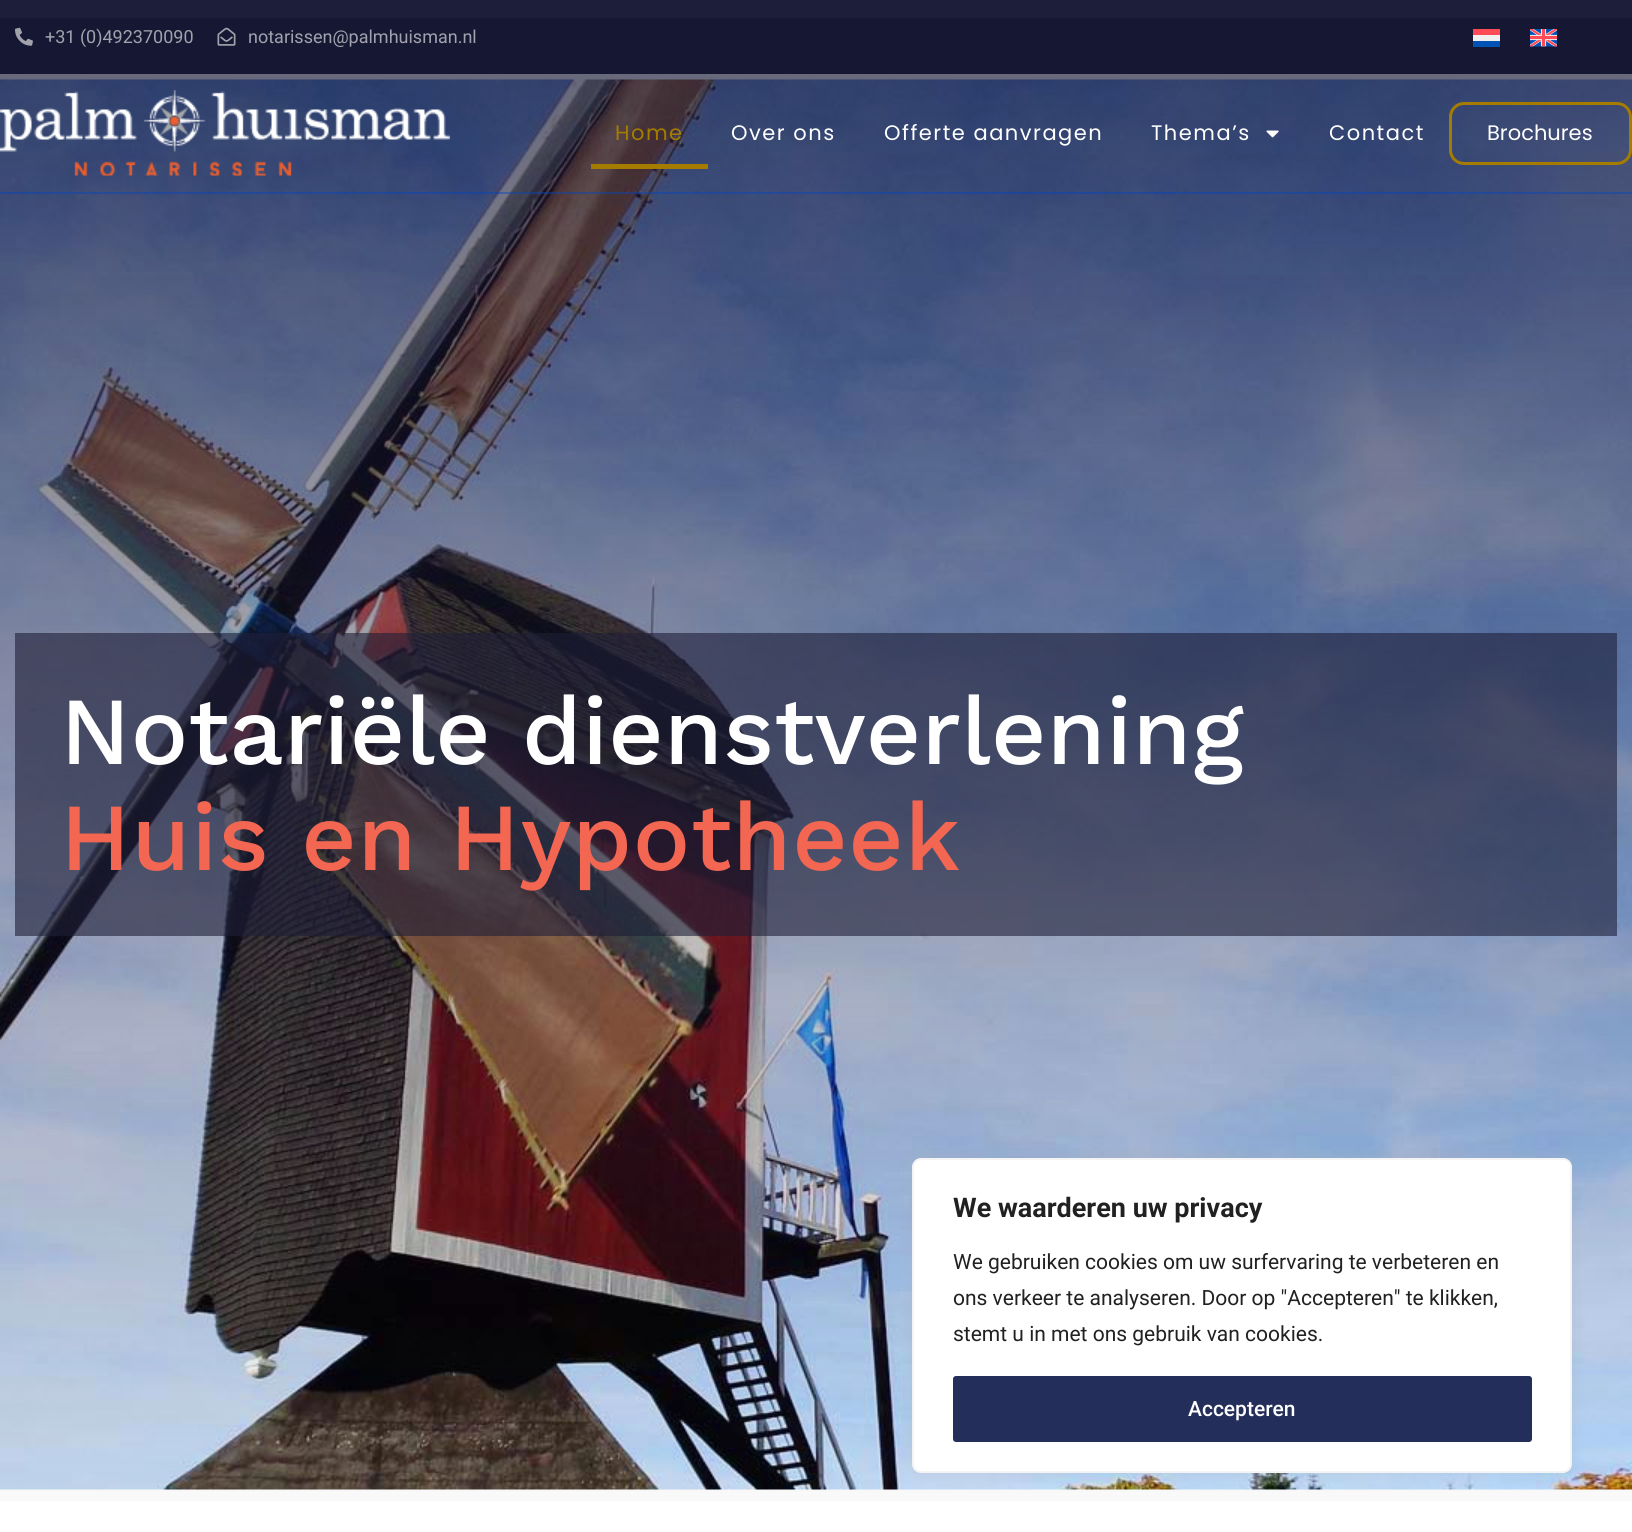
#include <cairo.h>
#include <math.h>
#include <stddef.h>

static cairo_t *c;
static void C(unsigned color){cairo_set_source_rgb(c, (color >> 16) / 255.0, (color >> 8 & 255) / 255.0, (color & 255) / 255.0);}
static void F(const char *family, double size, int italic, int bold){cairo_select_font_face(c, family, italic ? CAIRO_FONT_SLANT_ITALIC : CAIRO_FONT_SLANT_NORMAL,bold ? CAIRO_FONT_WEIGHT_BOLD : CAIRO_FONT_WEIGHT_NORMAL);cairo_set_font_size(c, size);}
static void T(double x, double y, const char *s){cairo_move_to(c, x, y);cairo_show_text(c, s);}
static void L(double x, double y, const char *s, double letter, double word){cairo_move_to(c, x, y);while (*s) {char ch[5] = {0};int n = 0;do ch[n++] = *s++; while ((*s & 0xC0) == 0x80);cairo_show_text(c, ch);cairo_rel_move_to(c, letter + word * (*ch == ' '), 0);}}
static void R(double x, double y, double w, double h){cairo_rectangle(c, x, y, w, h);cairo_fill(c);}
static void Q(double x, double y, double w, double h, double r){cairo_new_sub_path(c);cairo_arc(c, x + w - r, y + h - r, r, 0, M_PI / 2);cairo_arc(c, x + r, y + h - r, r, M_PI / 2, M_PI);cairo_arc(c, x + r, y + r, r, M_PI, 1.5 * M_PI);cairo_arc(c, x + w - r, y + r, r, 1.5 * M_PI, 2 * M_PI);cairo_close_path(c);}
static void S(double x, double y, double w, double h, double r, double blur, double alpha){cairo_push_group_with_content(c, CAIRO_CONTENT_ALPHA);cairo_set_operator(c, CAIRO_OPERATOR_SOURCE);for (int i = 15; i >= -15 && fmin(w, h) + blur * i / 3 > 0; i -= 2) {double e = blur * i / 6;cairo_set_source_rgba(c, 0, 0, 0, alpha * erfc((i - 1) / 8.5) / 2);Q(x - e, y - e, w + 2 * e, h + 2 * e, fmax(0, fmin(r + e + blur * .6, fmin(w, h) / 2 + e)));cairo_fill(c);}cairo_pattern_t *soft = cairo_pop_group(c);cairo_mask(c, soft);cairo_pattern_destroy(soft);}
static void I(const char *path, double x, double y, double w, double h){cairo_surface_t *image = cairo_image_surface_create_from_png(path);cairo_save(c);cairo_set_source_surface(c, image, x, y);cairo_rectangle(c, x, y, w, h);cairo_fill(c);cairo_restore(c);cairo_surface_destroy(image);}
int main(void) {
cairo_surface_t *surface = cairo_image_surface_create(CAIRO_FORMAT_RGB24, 1632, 1532);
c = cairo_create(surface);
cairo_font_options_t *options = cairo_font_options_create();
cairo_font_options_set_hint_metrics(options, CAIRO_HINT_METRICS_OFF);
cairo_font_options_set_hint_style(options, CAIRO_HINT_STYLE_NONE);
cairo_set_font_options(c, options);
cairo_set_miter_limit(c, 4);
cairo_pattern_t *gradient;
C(0xffffff);
cairo_paint(c);
I("6.png",0,79,1632,1411);
gradient = cairo_pattern_create_linear(816,18,816,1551);
cairo_pattern_add_color_stop_rgba(gradient,0,0.071,0.075,0.192,.66);
cairo_pattern_add_color_stop_rgba(gradient,1,0.071,0.075,0.192,0);
cairo_set_source(c,gradient);
cairo_pattern_destroy(gradient);
R(0,18,1632,1483);
cairo_set_source_rgba(c,0.071,0.075,0.188,0.95);
R(0,0,1632,74);
I("1.png",15,27,18,19);
F("Roboto",18,0,0);
C(0xa2a2ae);
T(45,43,"+31 (0)492370090");
I("2.png",217,27,19,19);
T(248,43,"notarissen@palmhuisman.nl");
C(0xff4b55);
R(1473,29,27,6);
C(0xf0f0f0);
R(1473,35,27,6);
C(0x0052b4);
R(1473,41,27,6);
I("3.png",1530,29,27,18);
cairo_set_source_rgba(c,0.012,0.271,0.749,0.44);
R(0,192,1632,2);
I("4.png",0,90,450,86);
F("Poppins",21,0,0);
C(0xa67c00);
L(615,140,"Home",1.5,0);
R(591,164,117,5);
C(0xffffff);
L(731,140,"Over ons",1.5,0);
L(884,140,"Offerte aanvragen",1.5,0);
L(1151,140,"Thema’s",1.5,0);
I("5.png",1266,130,13,8);
L(1329,140,"Contact",1.5,0);
Q(1450.5,103.5,180,60,13.5);
C(0xa67c00);
cairo_set_line_width(c,3);
cairo_stroke(c);
C(0xffffff);
T(1487,140,"Brochures");
cairo_set_source_rgba(c,0.118,0.122,0.22,0.6);
R(15,633,1602,303);
F("Work Sans Medium",96,0,0);
C(0xffffff);
T(60,764,"Notariële dienstverlening");
C(0xf26652);
L(60,870,"Huis en Hypotheek",.6,0);
C(0xacabab);
S(912,1157,660,315,9,7.5,.3);
C(0xffffff);
Q(913,1159,658,313,8);
cairo_fill_preserve(c);
C(0xf4f4f4);
cairo_set_line_width(c,2);
cairo_stroke(c);
F("Roboto",27,0,1);
C(0x212121);
T(953,1217,"We waarderen uw privacy");
F("Roboto",21,0,0);
T(953,1269,"We gebruiken cookies om uw surfervaring te verbeteren en");
T(953,1305,"ons verkeer te analyseren. Door op \"Accepteren\" te klikken,");
T(953,1341,"stemt u in met ons gebruik van cookies.");
C(0x242e5a);
Q(954.5,1377.5,576,63,1.5);
cairo_fill_preserve(c);
cairo_set_line_width(c,3);
cairo_stroke(c);
F("Roboto Medium",21,0,0);
C(0xffffff);
T(1188,1416,"Accepteren");
cairo_surface_write_to_png(surface, "o.png");
cairo_font_options_destroy(options);
cairo_destroy(c);
cairo_surface_destroy(surface);
return 0;
}
